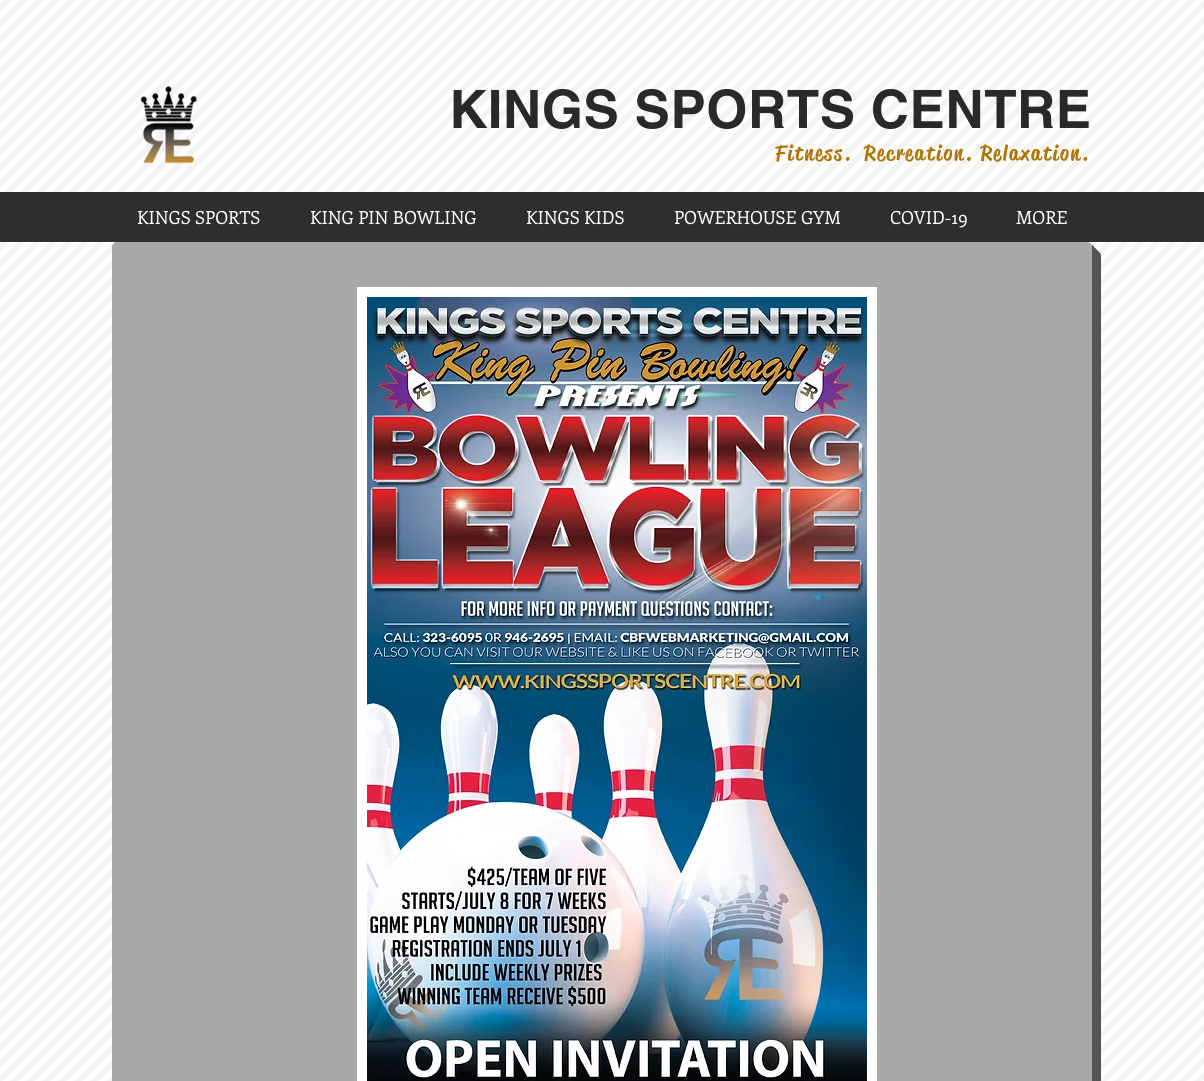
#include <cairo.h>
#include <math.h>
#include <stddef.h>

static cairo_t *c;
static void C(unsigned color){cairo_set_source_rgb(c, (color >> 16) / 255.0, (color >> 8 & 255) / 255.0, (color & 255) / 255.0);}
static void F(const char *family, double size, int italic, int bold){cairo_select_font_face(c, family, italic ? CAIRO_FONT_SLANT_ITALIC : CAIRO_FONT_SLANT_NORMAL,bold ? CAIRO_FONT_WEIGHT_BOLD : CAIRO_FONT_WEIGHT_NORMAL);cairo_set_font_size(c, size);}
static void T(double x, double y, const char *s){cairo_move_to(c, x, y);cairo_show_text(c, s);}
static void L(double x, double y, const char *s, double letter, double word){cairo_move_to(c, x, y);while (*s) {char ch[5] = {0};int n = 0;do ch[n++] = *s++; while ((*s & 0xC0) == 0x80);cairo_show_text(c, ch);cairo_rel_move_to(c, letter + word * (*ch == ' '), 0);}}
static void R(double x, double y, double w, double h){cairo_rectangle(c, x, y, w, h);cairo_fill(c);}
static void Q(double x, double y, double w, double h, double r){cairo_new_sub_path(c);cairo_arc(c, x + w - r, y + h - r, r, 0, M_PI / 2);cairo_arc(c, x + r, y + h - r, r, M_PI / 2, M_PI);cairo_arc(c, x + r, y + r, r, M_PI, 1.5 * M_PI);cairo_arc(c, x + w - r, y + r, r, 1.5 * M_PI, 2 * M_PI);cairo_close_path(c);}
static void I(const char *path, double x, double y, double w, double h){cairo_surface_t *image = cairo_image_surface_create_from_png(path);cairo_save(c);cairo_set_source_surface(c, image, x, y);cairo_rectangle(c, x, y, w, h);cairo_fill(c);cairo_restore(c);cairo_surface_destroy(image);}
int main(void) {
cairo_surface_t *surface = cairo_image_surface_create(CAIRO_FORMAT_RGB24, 1204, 1081);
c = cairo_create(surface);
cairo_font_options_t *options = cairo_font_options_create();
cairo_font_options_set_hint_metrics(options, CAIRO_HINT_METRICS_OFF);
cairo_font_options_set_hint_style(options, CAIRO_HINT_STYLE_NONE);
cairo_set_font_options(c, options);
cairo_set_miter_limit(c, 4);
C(0xffffff);
cairo_paint(c);
I("1.png",0,0,1204,1081);
I("2.png",140,85,57,79);
F("helvetica",53,0,1);
C(0x292929);
L(449,128,"KINGS SPORTS CENTRE",.5,0);
F("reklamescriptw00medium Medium",21,0,0);
C(0xaf7505);
L(775,160,"Fitness.",2.1,0);
L(864,160,"Recreation. Relaxation.",2.1,0);
C(0x2f2e2e);
R(0,192,1204,50);
F("Enriqueta",18,0,0);
C(0xffffff);
T(137,224,"KINGS SPORTS");
T(310,224,"KING PIN BOWLING");
T(526,224,"KINGS KIDS");
T(674,224,"POWERHOUSE GYM");
T(890,224,"COVID-19");
T(1016,224,"MORE");
C(0x545454);
cairo_new_path(c);
cairo_move_to(c,121,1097);
cairo_line_to(c,121,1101);
cairo_curve_to(c,121,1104,123,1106,126,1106);
cairo_line_to(c,1096,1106);
cairo_curve_to(c,1099,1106,1101,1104,1101,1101);
cairo_line_to(c,1101,256);
cairo_curve_to(c,1101,253,1099,251,1096,251);
cairo_line_to(c,1092,251);
cairo_line_to(c,1092,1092);
cairo_curve_to(c,1092,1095,1090,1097,1087,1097);
cairo_close_path(c);
cairo_fill(c);
cairo_new_path(c);
cairo_move_to(c,119,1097);
cairo_line_to(c,119,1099);
cairo_curve_to(c,119,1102,121,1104,124,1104);
cairo_line_to(c,1094,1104);
cairo_curve_to(c,1097,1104,1099,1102,1099,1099);
cairo_line_to(c,1099,254);
cairo_curve_to(c,1099,251,1097,249,1094,249);
cairo_line_to(c,1092,249);
cairo_line_to(c,1092,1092);
cairo_curve_to(c,1092,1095,1090,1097,1087,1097);
cairo_close_path(c);
cairo_fill(c);
cairo_new_path(c);
cairo_move_to(c,117,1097);
cairo_curve_to(c,117,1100,119,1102,122,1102);
cairo_line_to(c,1092,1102);
cairo_curve_to(c,1095,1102,1097,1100,1097,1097);
cairo_line_to(c,1097,252);
cairo_curve_to(c,1097,249,1095,247,1092,247);
cairo_line_to(c,1092,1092);
cairo_curve_to(c,1092,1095,1090,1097,1087,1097);
cairo_close_path(c);
cairo_fill(c);
cairo_new_path(c);
cairo_move_to(c,115,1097);
cairo_curve_to(c,116,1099,118,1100,120,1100);
cairo_line_to(c,1090,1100);
cairo_curve_to(c,1093,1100,1095,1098,1095,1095);
cairo_line_to(c,1095,250);
cairo_curve_to(c,1095,248,1094,246,1092,245);
cairo_line_to(c,1092,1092);
cairo_curve_to(c,1092,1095,1090,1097,1087,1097);
cairo_close_path(c);
cairo_fill(c);
cairo_new_path(c);
cairo_move_to(c,114,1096);
cairo_curve_to(c,115,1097,116,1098,118,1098);
cairo_line_to(c,1088,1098);
cairo_curve_to(c,1091,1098,1093,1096,1093,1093);
cairo_line_to(c,1093,248);
cairo_curve_to(c,1093,246,1092,245,1091,244);
cairo_curve_to(c,1092,245,1092,246,1092,247);
cairo_line_to(c,1092,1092);
cairo_curve_to(c,1092,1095,1090,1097,1087,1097);
cairo_line_to(c,117,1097);
cairo_curve_to(c,116,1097,115,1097,114,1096);
cairo_close_path(c);
cairo_fill(c);
C(0xa8a8a8);
Q(112,242,980,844,5);
cairo_fill(c);
C(0xffffff);
R(357,287,520,794);
I("3.png",367,297,500,784);
cairo_surface_write_to_png(surface, "o.png");
cairo_font_options_destroy(options);
cairo_destroy(c);
cairo_surface_destroy(surface);
return 0;
}
